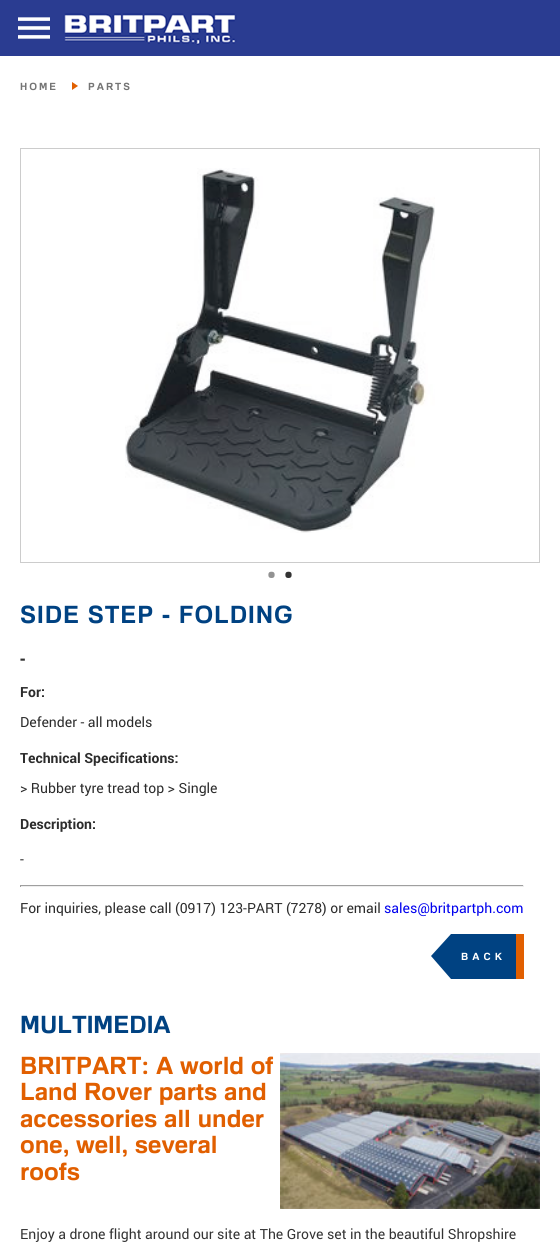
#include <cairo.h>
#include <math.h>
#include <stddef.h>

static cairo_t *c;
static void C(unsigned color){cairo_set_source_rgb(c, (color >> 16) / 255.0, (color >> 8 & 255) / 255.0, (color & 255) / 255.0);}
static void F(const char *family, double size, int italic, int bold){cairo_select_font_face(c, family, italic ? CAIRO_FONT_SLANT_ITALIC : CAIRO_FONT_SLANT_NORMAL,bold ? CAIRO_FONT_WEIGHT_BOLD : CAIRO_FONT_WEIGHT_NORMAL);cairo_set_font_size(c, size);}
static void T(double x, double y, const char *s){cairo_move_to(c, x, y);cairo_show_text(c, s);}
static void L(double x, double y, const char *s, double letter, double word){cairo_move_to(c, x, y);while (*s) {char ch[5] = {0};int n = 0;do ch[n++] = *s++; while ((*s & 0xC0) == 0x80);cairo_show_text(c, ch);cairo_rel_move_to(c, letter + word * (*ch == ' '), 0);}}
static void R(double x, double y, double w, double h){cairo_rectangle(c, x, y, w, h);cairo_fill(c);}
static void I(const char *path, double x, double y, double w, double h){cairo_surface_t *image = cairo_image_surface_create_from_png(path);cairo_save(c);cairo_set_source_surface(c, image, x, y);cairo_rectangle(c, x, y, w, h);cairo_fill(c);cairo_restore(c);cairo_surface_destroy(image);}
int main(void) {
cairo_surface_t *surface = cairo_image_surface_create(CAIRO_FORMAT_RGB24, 560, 1250);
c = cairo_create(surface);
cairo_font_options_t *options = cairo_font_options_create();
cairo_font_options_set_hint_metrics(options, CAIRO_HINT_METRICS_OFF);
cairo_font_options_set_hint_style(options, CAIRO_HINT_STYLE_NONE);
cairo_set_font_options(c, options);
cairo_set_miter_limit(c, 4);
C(0xffffff);
cairo_paint(c);
C(0x2a3c91);
R(0,0,560,56);
I("1.png",18,17,32,22);
I("2.png",63,13,174,32);
F("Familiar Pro",10,0,1);
C(0x757575);
L(20,90,"HOME",2,0);
C(0xe15f00);
cairo_new_path(c);
cairo_move_to(c,72,90);
cairo_line_to(c,72,82);
cairo_line_to(c,78,86);
cairo_close_path(c);
cairo_fill(c);
C(0x757575);
L(88,90,"PARTS",2,0);
cairo_rectangle(c,20.5,148.5,519,414);
C(0xcccccc);
cairo_set_line_width(c,1);
cairo_stroke(c);
I("3.png",125,168,310,365);
F("Familiar Pro",20,0,1);
C(0x929292);
T(268,582,"•");
C(0x333333);
T(285,582,"•");
F("Familiar Pro",24,0,1);
C(0x004282);
L(20,623,"SIDE STEP - FOLDING",1,0);
F("Familiar Pro",16,0,1);
C(0x333333);
T(20,664,"-");
F("Roboto",14,0,1);
C(0x2c2c2c);
T(20,697,"For:");
F("Roboto",14,0,0);
T(20,727,"Defender - all models");
F("Roboto",14,0,1);
T(20,763,"Technical Specifications:");
F("Roboto",14,0,0);
T(20,793,"> Rubber tyre tread top > Single");
F("Roboto",14,0,1);
T(20,829,"Description:");
F("Roboto",14,0,0);
T(20,864,"-");
C(0x9f9f9f);
R(20,885,504,1);
C(0xeeeeee);
R(523,885,1,2);
R(20,886,504,1);
C(0x9f9f9f);
R(20,885,1,2);
C(0x2c2c2c);
T(20,913,"For inquiries, please call (0917) 123-PART (7278) or email");
C(0x0000ee);
T(384,913,"sales@britpartph.com");
C(0x004282);
cairo_new_path(c);
cairo_move_to(c,451,934);
cairo_line_to(c,451,979);
cairo_line_to(c,431,956);
cairo_close_path(c);
cairo_fill(c);
R(451,934,65,45);
F("Familiar Pro",10,0,1);
C(0xffffff);
L(461,960,"BACK",4,0);
C(0xe15f00);
R(516,934,8,45);
F("Familiar Pro",24,0,1);
C(0x004282);
T(20,1033,"MULTIMEDIA");
C(0xe15f00);
T(20,1074,"BRITPART: A world of");
T(20,1100,"Land Rover parts and");
T(20,1127,"accessories all under");
T(20,1153,"one, well, several");
T(20,1180,"roofs");
I("4.png",280,1053,260,156);
F("Roboto",14,0,0);
C(0x333333);
T(20,1239,"Enjoy a drone flight around our site at The Grove set in the beautiful Shropshire");
cairo_surface_write_to_png(surface, "o.png");
cairo_font_options_destroy(options);
cairo_destroy(c);
cairo_surface_destroy(surface);
return 0;
}
